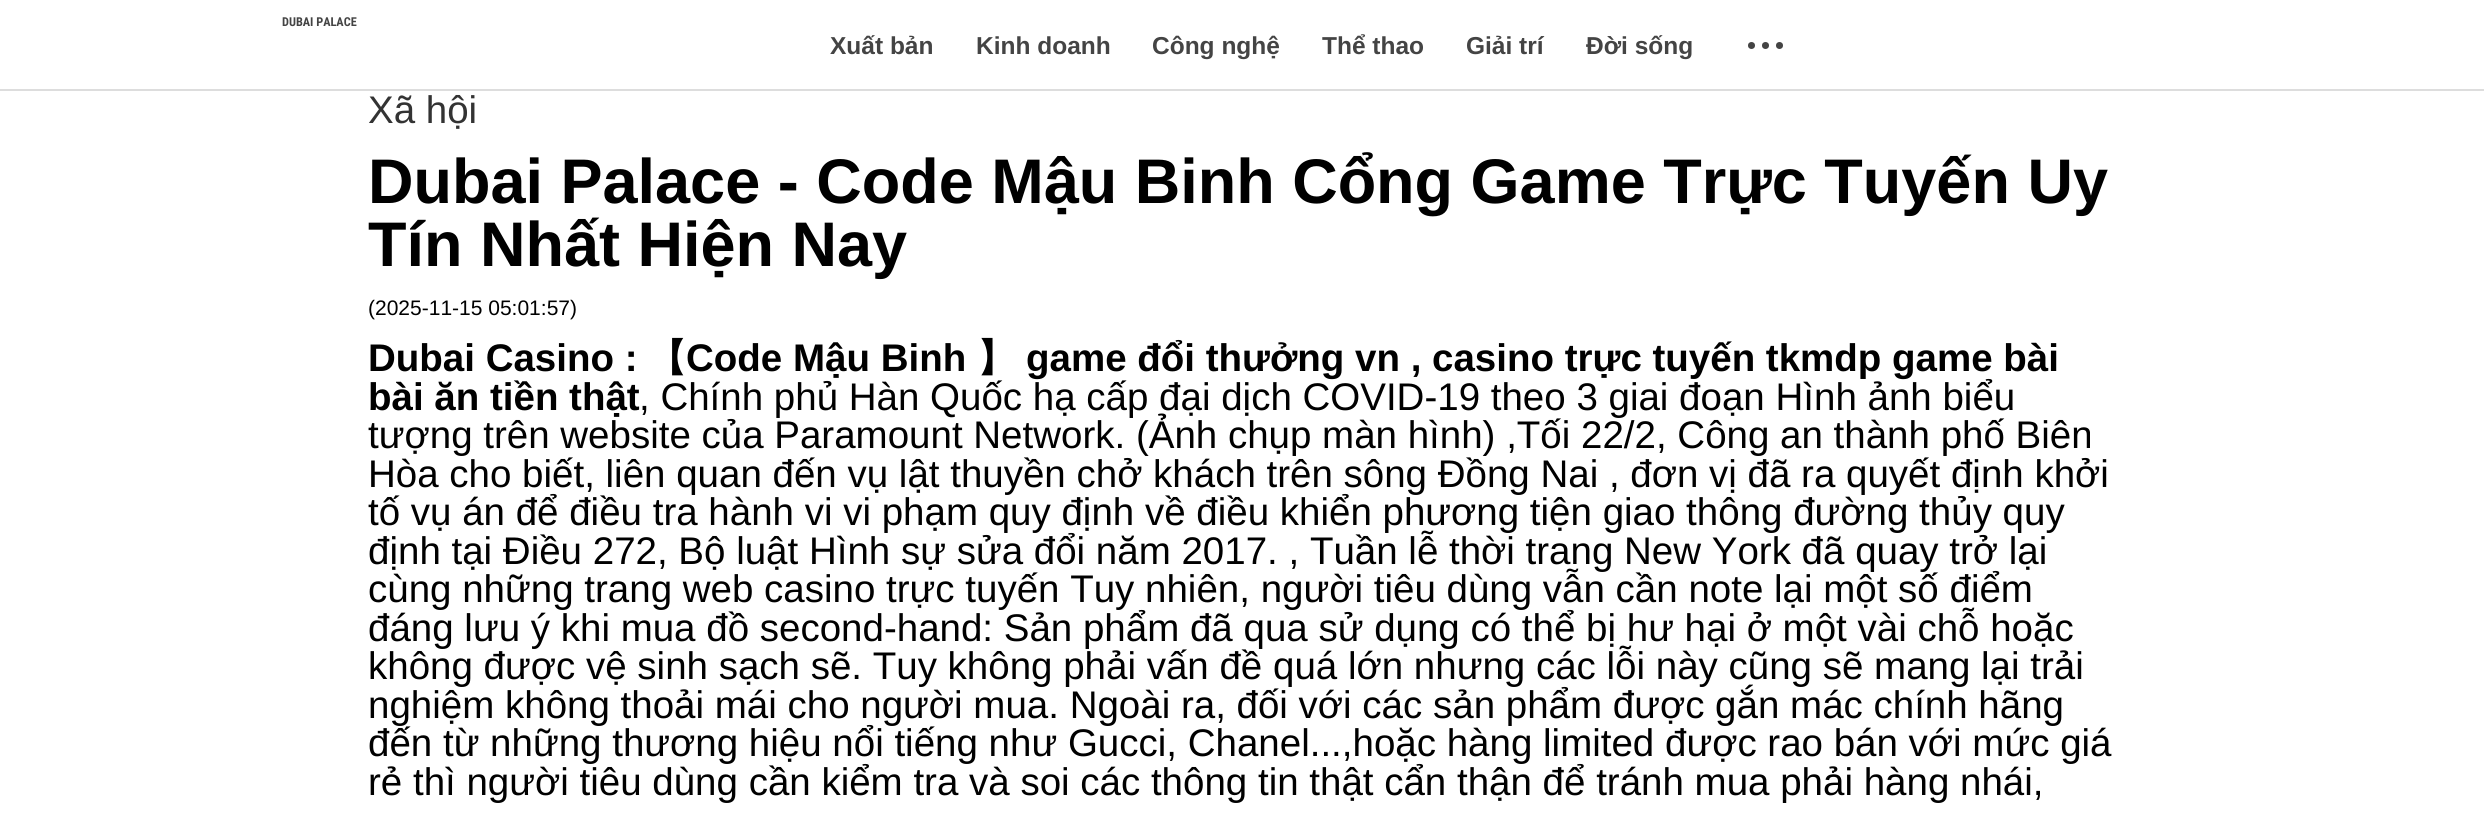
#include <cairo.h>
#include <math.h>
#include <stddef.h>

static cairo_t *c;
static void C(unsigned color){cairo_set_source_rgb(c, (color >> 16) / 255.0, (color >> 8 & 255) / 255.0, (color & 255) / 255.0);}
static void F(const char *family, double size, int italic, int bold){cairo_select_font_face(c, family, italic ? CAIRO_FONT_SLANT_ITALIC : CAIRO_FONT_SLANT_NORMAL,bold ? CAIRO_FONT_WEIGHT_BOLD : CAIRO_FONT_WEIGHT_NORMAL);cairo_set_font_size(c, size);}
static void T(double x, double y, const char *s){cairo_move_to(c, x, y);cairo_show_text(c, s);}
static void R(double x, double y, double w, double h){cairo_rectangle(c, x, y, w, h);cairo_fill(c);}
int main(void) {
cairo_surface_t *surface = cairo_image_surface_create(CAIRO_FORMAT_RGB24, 2484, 817);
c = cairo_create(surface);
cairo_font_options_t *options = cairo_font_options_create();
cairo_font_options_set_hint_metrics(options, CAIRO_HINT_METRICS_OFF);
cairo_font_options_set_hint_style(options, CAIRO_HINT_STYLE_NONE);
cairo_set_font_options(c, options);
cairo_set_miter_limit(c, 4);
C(0xffffff);
cairo_paint(c);
C(0xdddddd);
R(0,89,2484,2);
F("Roboto Condensed",12.25,0,1);
C(0x444444);
T(282,26,"DUBAI PALACE");
F("Liberation Sans",24.5,0,1);
T(830,54,"Xuất bản");
T(976,54,"Kinh doanh");
T(1152,54,"Công nghệ");
T(1322,54,"Thể thao");
T(1466,54,"Giải trí");
T(1586,54,"Đời sống");
cairo_new_path(c);
cairo_arc(c,1765.5,45.5,3.5,0,2 * M_PI);
cairo_fill(c);
cairo_arc(c,1751.5,45.5,3.5,0,2 * M_PI);
cairo_fill(c);
cairo_arc(c,1779.5,45.5,3.5,0,2 * M_PI);
cairo_fill(c);
F("Liberation Sans",38.5,0,0);
C(0x333333);
T(368,123,"Xã hội");
F("Liberation Sans",63,0,1);
C(0x000000);
T(368,203,"Dubai Palace - Code Mậu Binh Cổng Game Trực Tuyến Uy");
T(368,266,"Tín Nhất Hiện Nay");
F("Liberation Sans",21,0,0);
T(368,315,"(2025-11-15 05:01:57)");
F("Liberation Sans",38.5,0,1);
T(368,371,"Dubai Casino :");
F("WenQuanYi Zen Hei",38.5,0,1);
T(648,371,"【");
F("Liberation Sans",38.5,0,1);
T(686,371,"Code Mậu Binh");
F("WenQuanYi Zen Hei",38.5,0,1);
T(977,371,"】");
F("Liberation Sans",38.5,0,1);
T(1026,371,"game đổi thưởng vn , casino trực tuyến tkmdp game bài");
T(368,410,"bài ăn tiền thật");
F("Liberation Sans",38.5,0,0);
T(639,410,", Chính phủ Hàn Quốc hạ cấp đại dịch COVID-19 theo 3 giai đoạn Hình ảnh biểu");
T(368,448,"tượng trên website của Paramount Network. (Ảnh chụp màn hình) ,Tối 22/2, Công an thành phố Biên");
T(368,487,"Hòa cho biết, liên quan đến vụ lật thuyền chở khách trên sông Đồng Nai , đơn vị đã ra quyết định khởi");
T(368,525,"tố vụ án để điều tra hành vi vi phạm quy định về điều khiển phương tiện giao thông đường thủy quy");
T(368,564,"định tại Điều 272, Bộ luật Hình sự sửa đổi năm 2017. , Tuần lễ thời trang New York đã quay trở lại");
T(368,602,"cùng những trang web casino trực tuyến Tuy nhiên, người tiêu dùng vẫn cần note lại một số điểm");
T(368,641,"đáng lưu ý khi mua đồ second-hand: Sản phẩm đã qua sử dụng có thể bị hư hại ở một vài chỗ hoặc");
T(368,679,"không được vệ sinh sạch sẽ. Tuy không phải vấn đề quá lớn nhưng các lỗi này cũng sẽ mang lại trải");
T(368,718,"nghiệm không thoải mái cho người mua. Ngoài ra, đối với các sản phẩm được gắn mác chính hãng");
T(368,756,"đến từ những thương hiệu nổi tiếng như Gucci, Chanel...,hoặc hàng limited được rao bán với mức giá");
T(368,795,"rẻ thì người tiêu dùng cần kiểm tra và soi các thông tin thật cẩn thận để tránh mua phải hàng nhái,");
cairo_surface_write_to_png(surface, "o.png");
cairo_font_options_destroy(options);
cairo_destroy(c);
cairo_surface_destroy(surface);
return 0;
}
